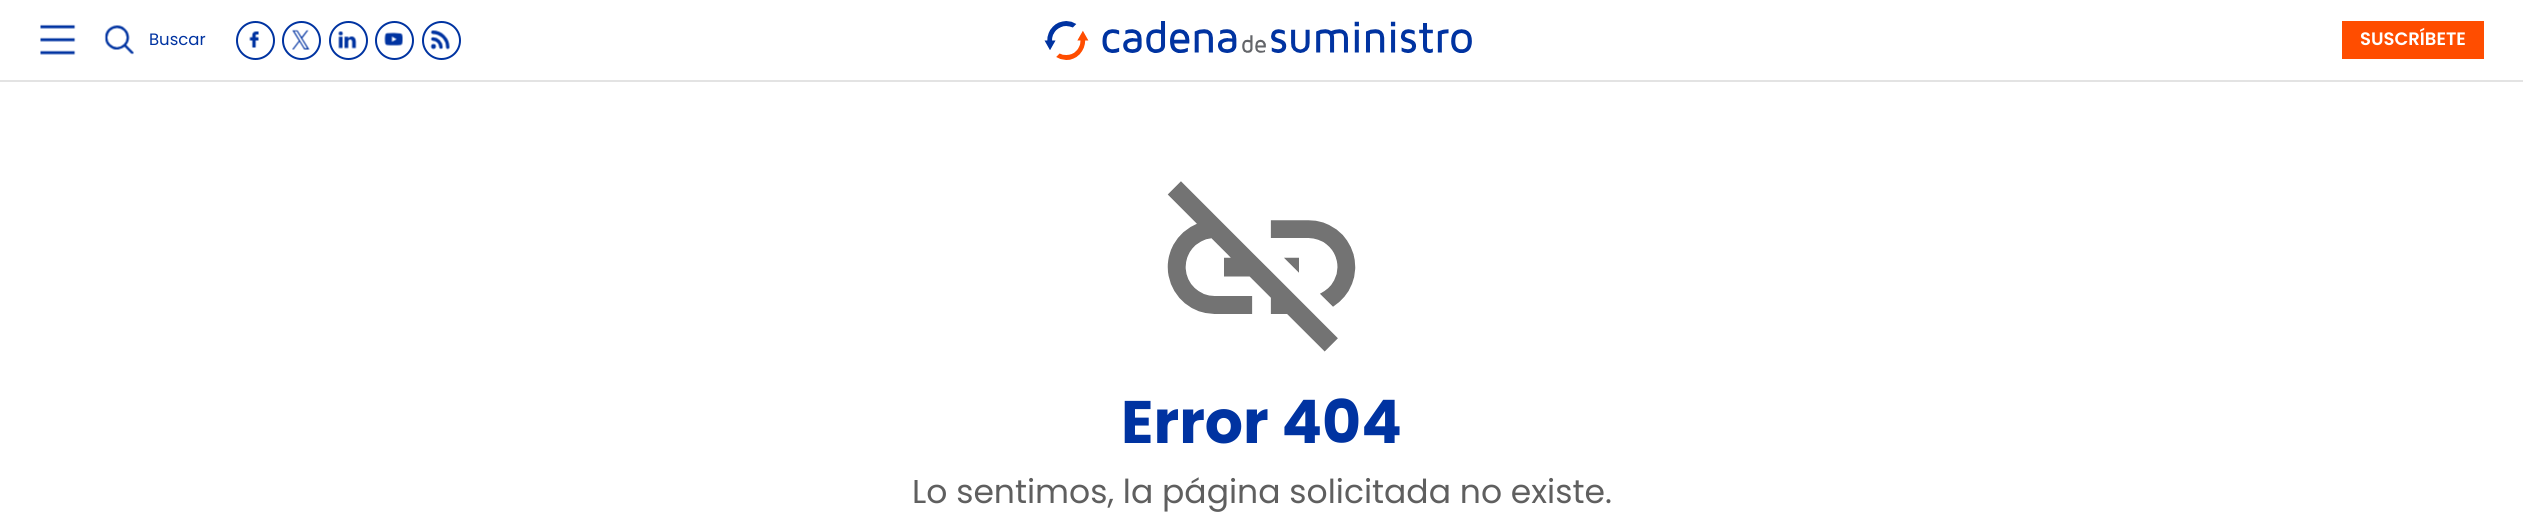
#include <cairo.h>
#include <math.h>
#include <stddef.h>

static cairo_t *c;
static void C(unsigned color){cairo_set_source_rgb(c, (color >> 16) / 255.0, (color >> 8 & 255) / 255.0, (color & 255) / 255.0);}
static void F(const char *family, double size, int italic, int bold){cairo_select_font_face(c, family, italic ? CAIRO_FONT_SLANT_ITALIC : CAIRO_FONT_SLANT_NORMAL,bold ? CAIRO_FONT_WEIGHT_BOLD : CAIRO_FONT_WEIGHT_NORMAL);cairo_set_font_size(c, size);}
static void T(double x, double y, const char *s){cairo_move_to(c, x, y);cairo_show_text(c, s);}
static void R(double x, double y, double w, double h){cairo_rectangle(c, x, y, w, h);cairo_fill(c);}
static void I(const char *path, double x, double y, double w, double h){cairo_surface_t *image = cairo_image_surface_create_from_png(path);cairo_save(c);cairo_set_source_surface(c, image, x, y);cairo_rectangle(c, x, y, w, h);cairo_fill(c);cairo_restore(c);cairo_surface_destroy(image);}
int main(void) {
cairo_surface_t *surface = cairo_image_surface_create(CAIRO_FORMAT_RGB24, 2523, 532);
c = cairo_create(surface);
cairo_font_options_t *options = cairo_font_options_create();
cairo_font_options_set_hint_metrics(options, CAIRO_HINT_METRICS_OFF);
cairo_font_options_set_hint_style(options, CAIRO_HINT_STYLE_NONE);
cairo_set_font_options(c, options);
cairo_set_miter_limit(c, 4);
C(0xffffff);
cairo_paint(c);
C(0xe3e3e3);
R(0,80,2523,2);
I("1.png",40,24,36,31);
I("2.png",104,25,30,30);
F("Poppins",16.5,0,0);
C(0x0033a1);
T(149,45,"Buscar");
cairo_new_path(c);
cairo_arc(c,255.5,40.5,18.5,0,2 * M_PI);
cairo_stroke(c);
I("3.png",249,31,10,17);
cairo_arc(c,301.5,40.5,18.5,0,2 * M_PI);
cairo_stroke(c);
I("4.png",292,29,18,21);
cairo_arc(c,348.5,40.5,18.5,0,2 * M_PI);
cairo_stroke(c);
I("5.png",338,31,19,18);
cairo_arc(c,394.5,40.5,18.5,0,2 * M_PI);
cairo_stroke(c);
I("6.png",384,32,19,14);
cairo_arc(c,441.5,40.5,18.5,0,2 * M_PI);
cairo_stroke(c);
I("7.png",430,30,20,20);
I("8.png",1044,21,428,39);
C(0xff4d00);
R(2342,21,142,38);
F("Poppins SemiBold",18,0,0);
C(0xffffff);
T(2360,45,"SUSCRÍBETE");
I("9.png",1167,181,189,171);
F("Poppins",60,0,1);
C(0x0033a1);
T(1121,443,"Error 404");
F("Poppins",33,0,0);
C(0x5f5f5f);
T(912,503,"Lo sentimos, la página solicitada no existe.");
cairo_surface_write_to_png(surface, "o.png");
cairo_font_options_destroy(options);
cairo_destroy(c);
cairo_surface_destroy(surface);
return 0;
}
